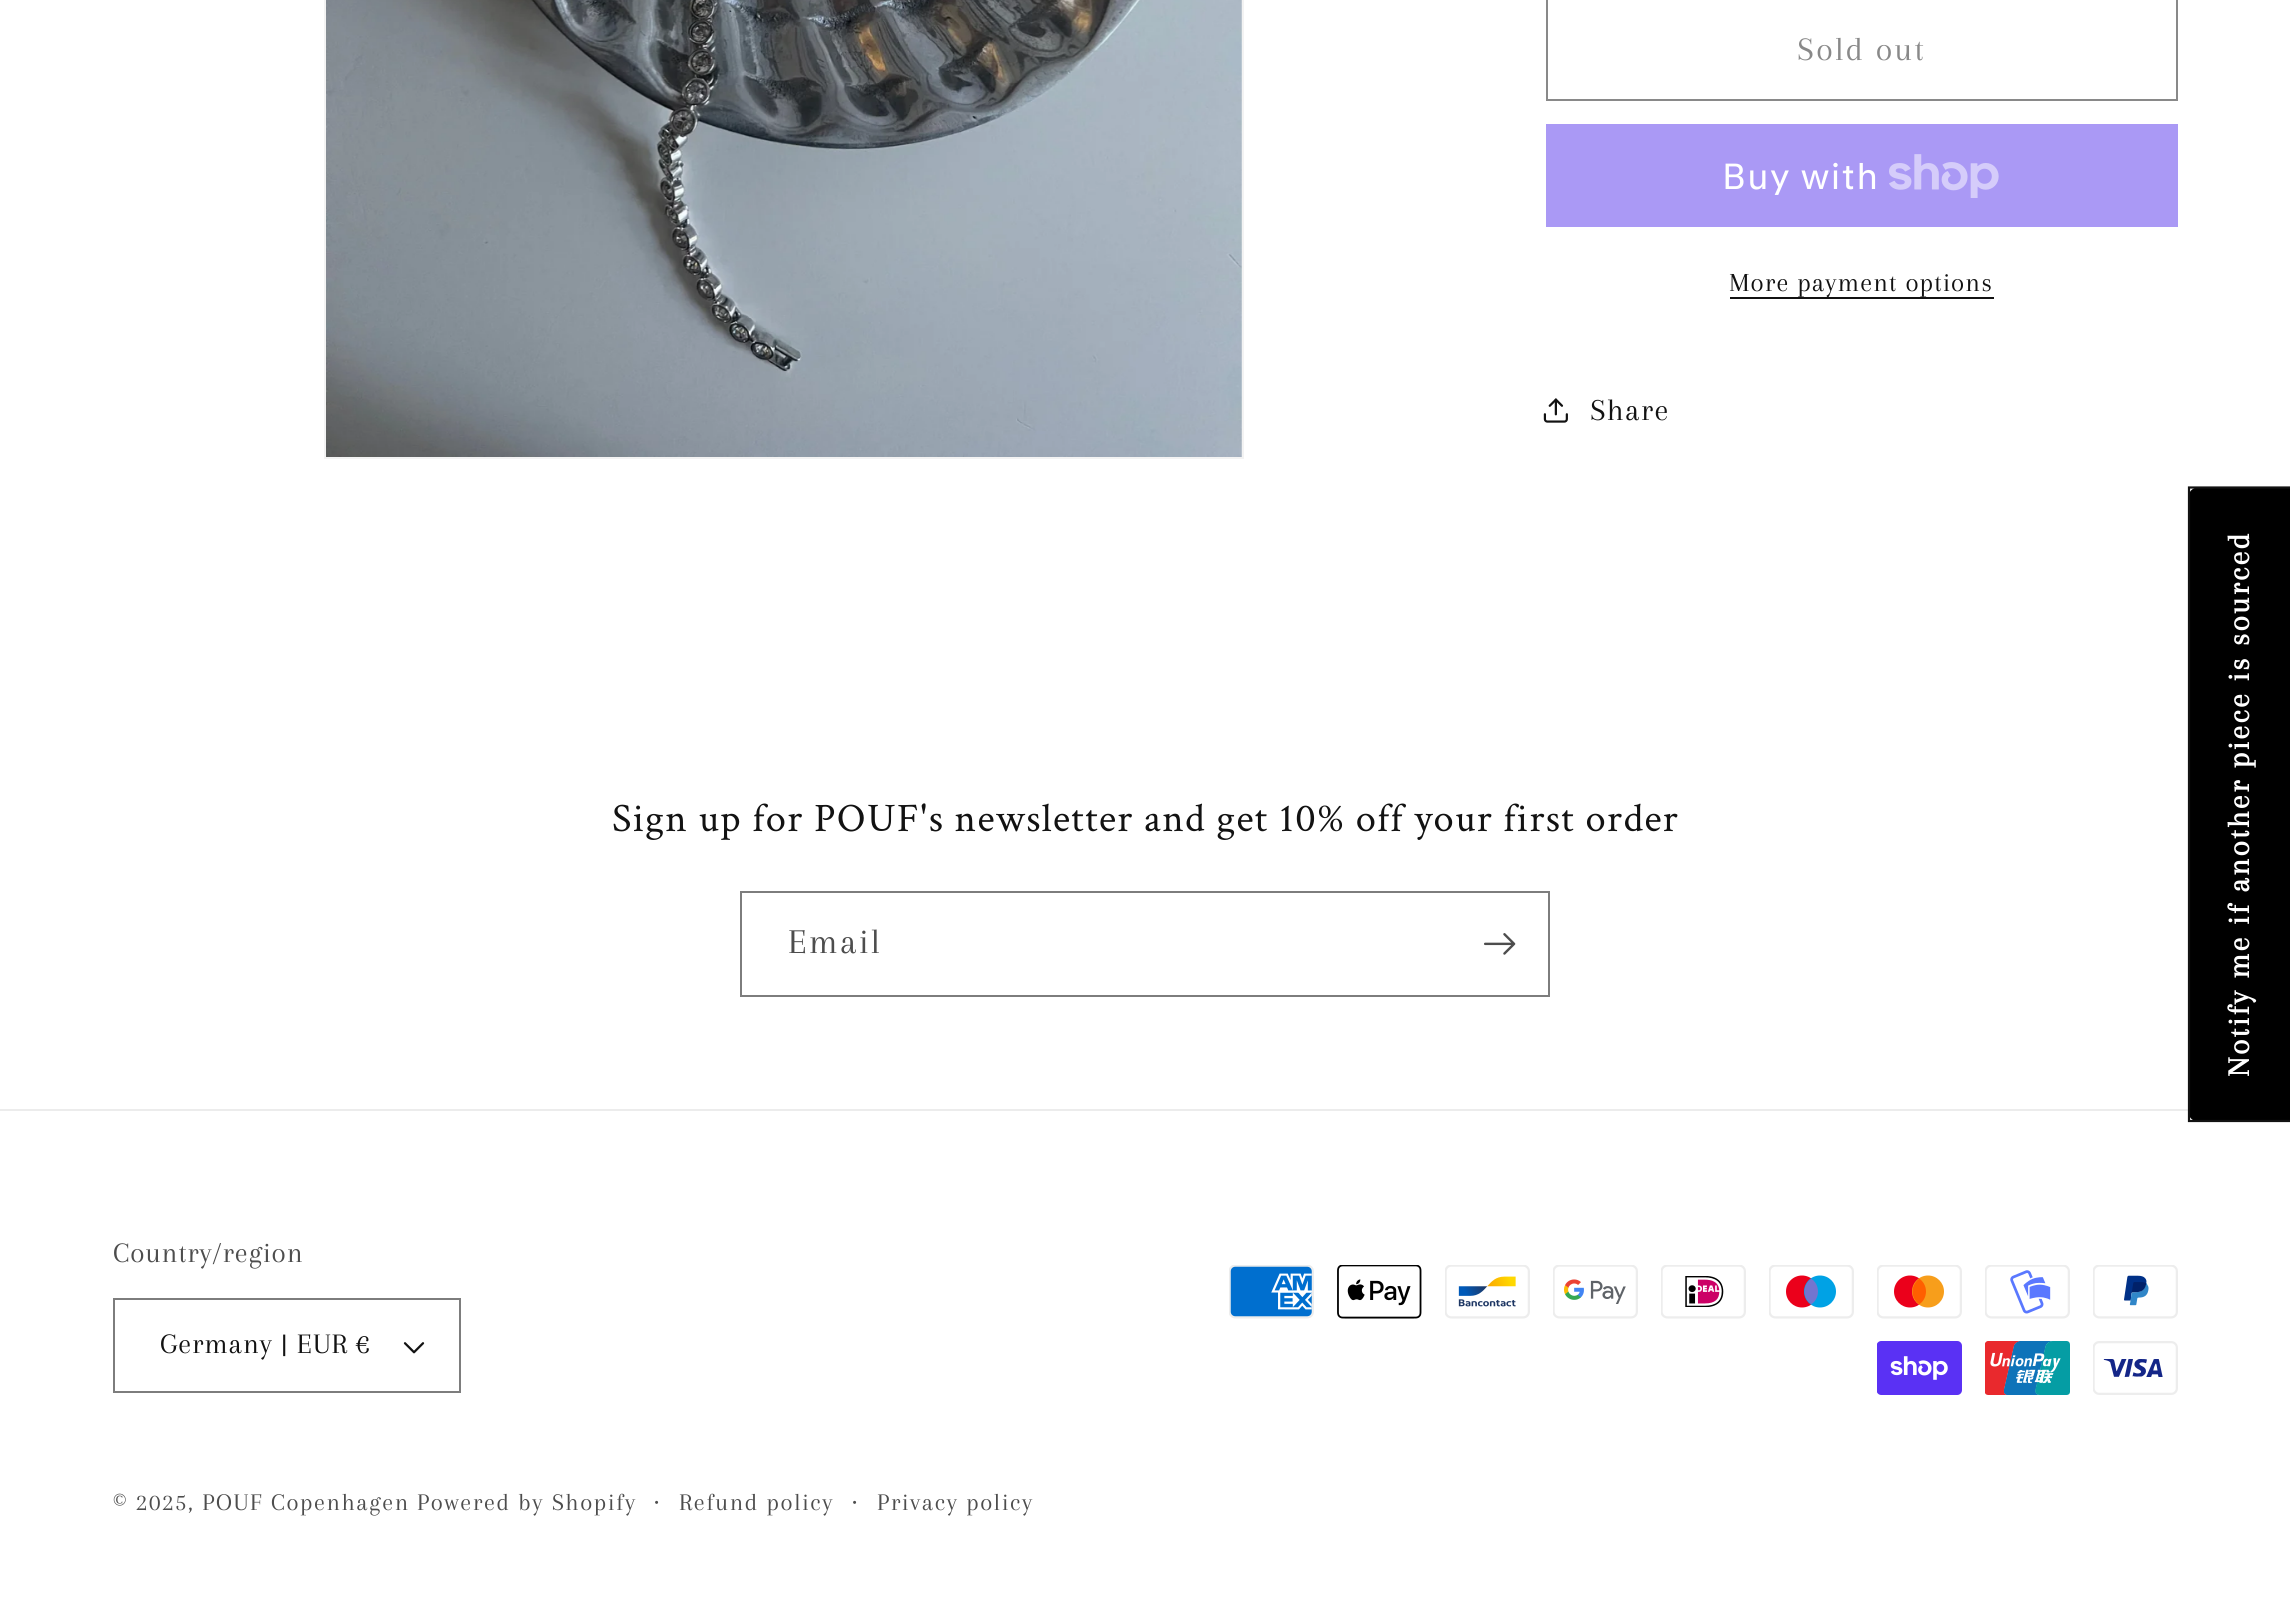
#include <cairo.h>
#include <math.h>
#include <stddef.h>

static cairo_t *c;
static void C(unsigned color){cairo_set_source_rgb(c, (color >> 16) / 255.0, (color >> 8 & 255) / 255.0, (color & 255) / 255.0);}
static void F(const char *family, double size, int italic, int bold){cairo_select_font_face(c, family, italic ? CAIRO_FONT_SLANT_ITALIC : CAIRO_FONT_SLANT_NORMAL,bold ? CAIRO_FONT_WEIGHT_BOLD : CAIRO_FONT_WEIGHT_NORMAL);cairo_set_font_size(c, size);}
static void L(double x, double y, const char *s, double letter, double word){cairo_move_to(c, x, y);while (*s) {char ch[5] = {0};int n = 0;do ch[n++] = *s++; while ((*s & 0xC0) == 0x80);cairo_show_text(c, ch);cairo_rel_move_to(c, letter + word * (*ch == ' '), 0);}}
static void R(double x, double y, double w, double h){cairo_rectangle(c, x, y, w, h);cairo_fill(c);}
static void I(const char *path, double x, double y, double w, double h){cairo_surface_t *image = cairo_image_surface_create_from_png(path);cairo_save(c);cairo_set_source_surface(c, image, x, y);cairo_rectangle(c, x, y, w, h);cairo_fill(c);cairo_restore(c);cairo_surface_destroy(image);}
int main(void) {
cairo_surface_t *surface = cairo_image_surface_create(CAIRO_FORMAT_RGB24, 2290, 1607);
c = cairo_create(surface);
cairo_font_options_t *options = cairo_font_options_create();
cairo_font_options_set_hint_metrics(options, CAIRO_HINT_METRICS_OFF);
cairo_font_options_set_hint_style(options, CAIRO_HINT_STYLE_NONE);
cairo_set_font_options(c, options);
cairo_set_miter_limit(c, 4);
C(0xffffff);
cairo_paint(c);
cairo_rectangle(c,325,-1,918,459);
C(0xf3f3f3);
cairo_stroke(c);
I("1.png",326,0,916,457);
cairo_rectangle(c,1547,-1,630,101);
C(0x898989);
cairo_stroke(c);
F("Arapey",34,0,0);
L(1797,60,"Sold out",2.25,0);
C(0xaa99f5);
R(1546,124,632,103);
F("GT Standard",36,0,0);
C(0xffffff);
L(1722,189,"Buy with",1.35,0);
I("2.png",1889,154,110,44);
C(0x121212);
R(1730,297,264,2);
F("Arapey",27,0,0);
L(1729,291,"More payment options",1.1,0);
I("3.png",1543,398,25,25);
F("Arapey",31.5,0,0);
L(1590,420,"Share",1.35,0);
F("Crimson Text",40.5,0,0);
L(612,831,"Sign up for POUF's newsletter and get 10% off your first order",1.35,0);
cairo_rectangle(c,741,892,808,104);
C(0x7d7d7d);
cairo_stroke(c);
F("Arapey",36,0,0);
C(0x4d4d4d);
L(788,953,"Email",2.25,0);
I("4.png",1484,933,32,22);
C(0xececec);
R(0,1109,2188,2);
F("Arapey",29.25,0,0);
C(0x4d4d4d);
L(113,1262,"Country/region",.9,0);
I("5.png",403,1342,22,12);
cairo_rectangle(c,114,1299,346,93);
C(0x7d7d7d);
cairo_stroke(c);
C(0x121212);
L(160,1353,"Germany | EUR €",.9,0);
I("6.png",1229,1265,85,54);
I("7.png",1337,1265,85,54);
I("8.png",1445,1265,85,54);
I("9.png",1553,1265,85,54);
I("10.png",1661,1265,85,54);
I("11.png",1769,1265,85,54);
I("12.png",1877,1265,85,54);
I("13.png",1985,1265,85,54);
I("14.png",2093,1265,85,54);
I("15.png",1877,1341,85,54);
I("16.png",1985,1341,85,54);
I("17.png",2093,1341,85,54);
F("Arapey",24.75,0,0);
C(0x4d4d4d);
L(113,1510,"© 2025, POUF Copenhagen",1.6,0);
L(417,1510,"Powered by Shopify",1.6,0);
F("Arapey",27,0,0);
L(654,1510,"·",1.6,0);
F("Arapey",24.75,0,0);
L(679,1510,"Refund policy",1.6,0);
F("Arapey",27,0,0);
L(852,1510,"·",1.6,0);
F("Arapey",24.75,0,0);
L(877,1510,"Privacy policy",1.6,0);
C(0x000000);
cairo_new_path(c);
cairo_move_to(c,2188,1111);
cairo_line_to(c,2188,498);
cairo_curve_to(c,2188,492,2193,487,2199,487);
cairo_line_to(c,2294,487);
cairo_line_to(c,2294,1122);
cairo_line_to(c,2199,1122);
cairo_curve_to(c,2193,1122,2188,1117,2188,1111);
cairo_close_path(c);
cairo_fill(c);
F("Arapey",31.5,0,1);
C(0xffffff);
cairo_save(c);
cairo_translate(c,2249,1077);
cairo_rotate(c,-90 * M_PI / 180);
L(0,0,"Notify me if another piece is sourced",2.25,0);
cairo_restore(c);
cairo_new_path(c);
cairo_move_to(c,2189,1121);
cairo_line_to(c,2189,487.5);
cairo_line_to(c,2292.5,487.5);
cairo_line_to(c,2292.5,1121);
cairo_close_path(c);
C(0x121212);
cairo_set_line_width(c,2.2);
cairo_stroke(c);
cairo_surface_write_to_png(surface, "o.png");
cairo_font_options_destroy(options);
cairo_destroy(c);
cairo_surface_destroy(surface);
return 0;
}
